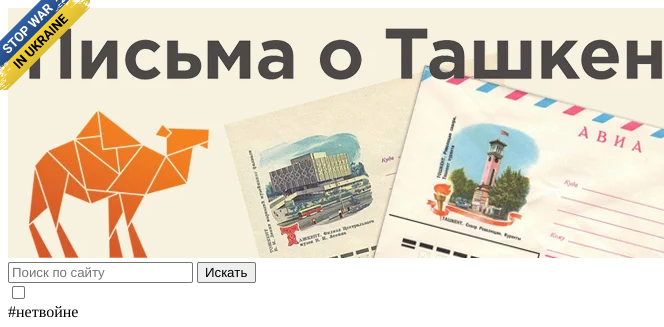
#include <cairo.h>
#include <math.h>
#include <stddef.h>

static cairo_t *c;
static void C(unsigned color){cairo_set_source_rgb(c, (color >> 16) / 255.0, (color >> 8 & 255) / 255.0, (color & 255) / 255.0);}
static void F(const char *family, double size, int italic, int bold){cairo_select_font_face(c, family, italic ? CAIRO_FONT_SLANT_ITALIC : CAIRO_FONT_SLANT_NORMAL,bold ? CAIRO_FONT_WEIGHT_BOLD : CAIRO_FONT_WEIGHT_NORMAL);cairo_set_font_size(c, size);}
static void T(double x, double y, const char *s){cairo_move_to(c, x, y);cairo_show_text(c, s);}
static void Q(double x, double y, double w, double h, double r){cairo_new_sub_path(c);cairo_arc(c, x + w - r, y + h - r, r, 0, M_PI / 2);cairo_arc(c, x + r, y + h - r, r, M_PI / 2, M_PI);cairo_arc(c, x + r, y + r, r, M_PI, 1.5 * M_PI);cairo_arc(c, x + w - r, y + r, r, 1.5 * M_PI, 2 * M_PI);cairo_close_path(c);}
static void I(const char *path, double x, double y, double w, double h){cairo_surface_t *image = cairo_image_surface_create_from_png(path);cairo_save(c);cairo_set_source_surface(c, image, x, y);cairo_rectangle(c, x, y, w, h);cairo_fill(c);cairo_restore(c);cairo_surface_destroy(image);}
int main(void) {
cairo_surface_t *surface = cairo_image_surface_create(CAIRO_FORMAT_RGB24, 664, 327);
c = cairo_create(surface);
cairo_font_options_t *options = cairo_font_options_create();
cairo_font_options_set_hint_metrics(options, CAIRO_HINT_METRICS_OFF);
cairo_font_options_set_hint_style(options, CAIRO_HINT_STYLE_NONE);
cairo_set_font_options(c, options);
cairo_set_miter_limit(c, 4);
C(0xffffff);
cairo_paint(c);
I("2.png",8,8,656,250);
I("1.png",0,0,90,90);
Q(8.5,262.5,184,20,1.5);
C(0x767676);
cairo_set_line_width(c,1);
cairo_stroke(c);
F("Liberation Sans",13.25,0,0);
C(0x757575);
T(12,277,"Поиск по сайту");
C(0xefefef);
Q(197.5,262.5,58,20,1.5);
cairo_fill_preserve(c);
C(0x767676);
cairo_stroke(c);
C(0x000000);
T(205,277,"Искать");
Q(12.5,286.5,12,12,1.5);
C(0x767676);
cairo_stroke(c);
F("Liberation Serif",16,0,0);
C(0x000000);
T(8,317,"#нетвойне");
cairo_surface_write_to_png(surface, "o.png");
cairo_font_options_destroy(options);
cairo_destroy(c);
cairo_surface_destroy(surface);
return 0;
}
